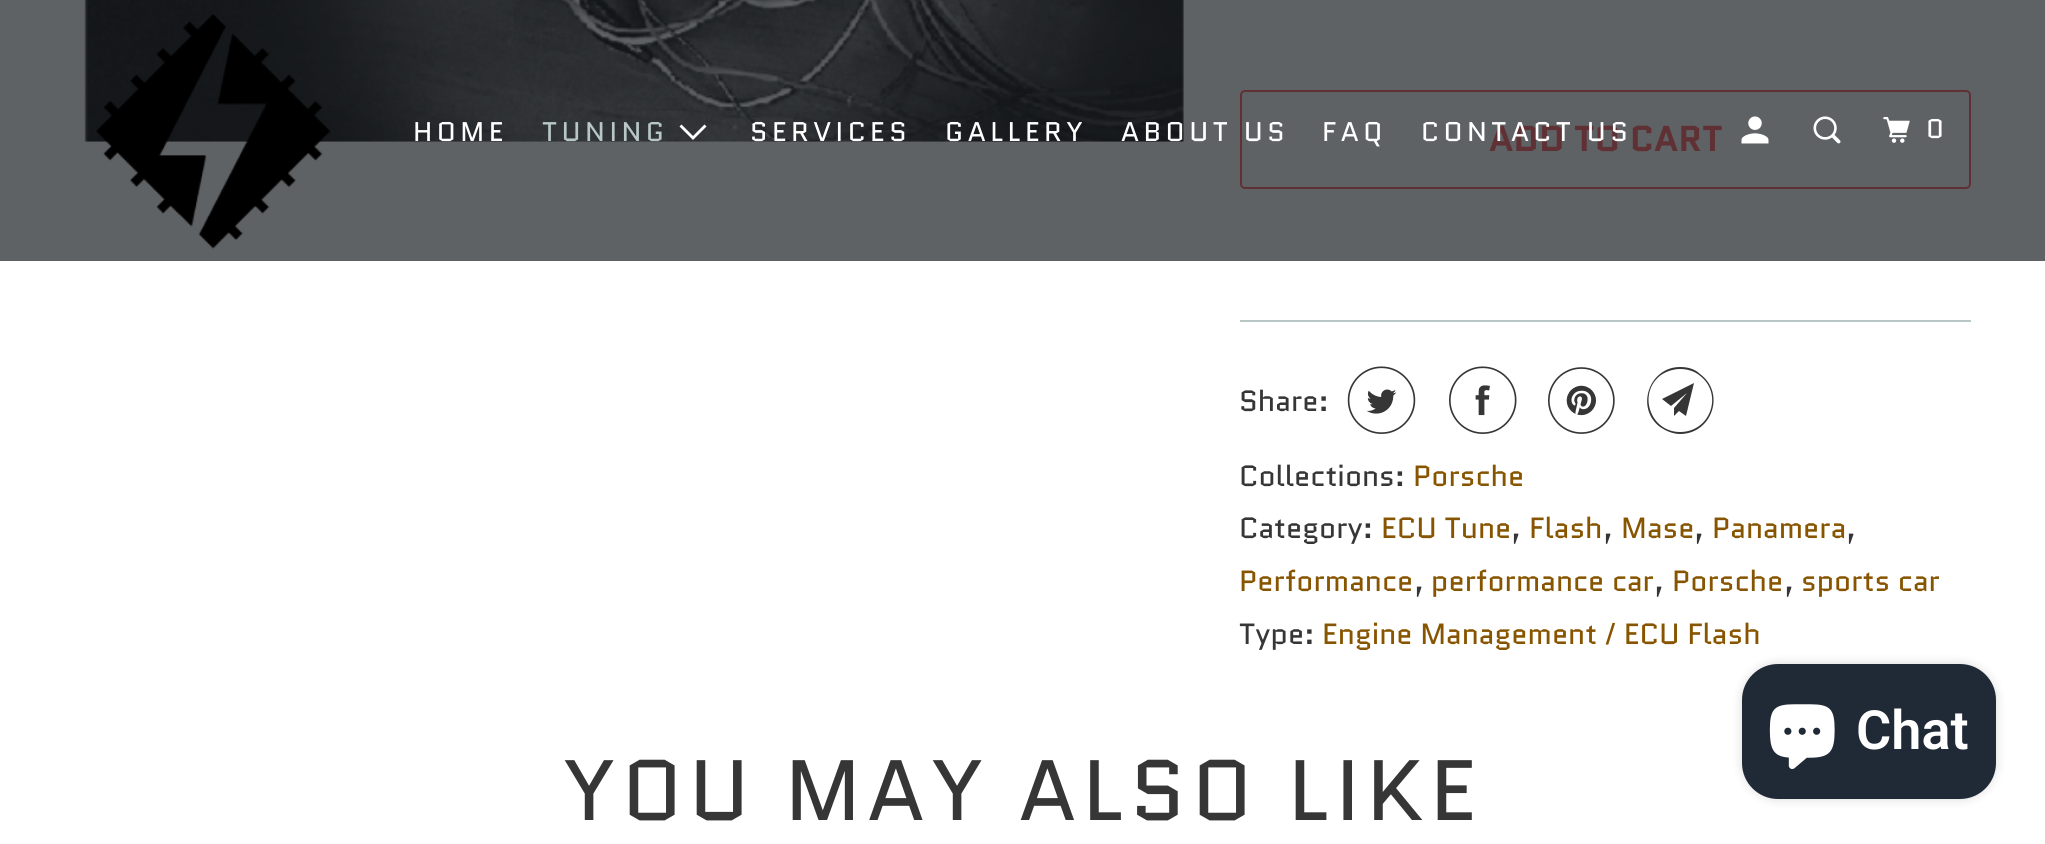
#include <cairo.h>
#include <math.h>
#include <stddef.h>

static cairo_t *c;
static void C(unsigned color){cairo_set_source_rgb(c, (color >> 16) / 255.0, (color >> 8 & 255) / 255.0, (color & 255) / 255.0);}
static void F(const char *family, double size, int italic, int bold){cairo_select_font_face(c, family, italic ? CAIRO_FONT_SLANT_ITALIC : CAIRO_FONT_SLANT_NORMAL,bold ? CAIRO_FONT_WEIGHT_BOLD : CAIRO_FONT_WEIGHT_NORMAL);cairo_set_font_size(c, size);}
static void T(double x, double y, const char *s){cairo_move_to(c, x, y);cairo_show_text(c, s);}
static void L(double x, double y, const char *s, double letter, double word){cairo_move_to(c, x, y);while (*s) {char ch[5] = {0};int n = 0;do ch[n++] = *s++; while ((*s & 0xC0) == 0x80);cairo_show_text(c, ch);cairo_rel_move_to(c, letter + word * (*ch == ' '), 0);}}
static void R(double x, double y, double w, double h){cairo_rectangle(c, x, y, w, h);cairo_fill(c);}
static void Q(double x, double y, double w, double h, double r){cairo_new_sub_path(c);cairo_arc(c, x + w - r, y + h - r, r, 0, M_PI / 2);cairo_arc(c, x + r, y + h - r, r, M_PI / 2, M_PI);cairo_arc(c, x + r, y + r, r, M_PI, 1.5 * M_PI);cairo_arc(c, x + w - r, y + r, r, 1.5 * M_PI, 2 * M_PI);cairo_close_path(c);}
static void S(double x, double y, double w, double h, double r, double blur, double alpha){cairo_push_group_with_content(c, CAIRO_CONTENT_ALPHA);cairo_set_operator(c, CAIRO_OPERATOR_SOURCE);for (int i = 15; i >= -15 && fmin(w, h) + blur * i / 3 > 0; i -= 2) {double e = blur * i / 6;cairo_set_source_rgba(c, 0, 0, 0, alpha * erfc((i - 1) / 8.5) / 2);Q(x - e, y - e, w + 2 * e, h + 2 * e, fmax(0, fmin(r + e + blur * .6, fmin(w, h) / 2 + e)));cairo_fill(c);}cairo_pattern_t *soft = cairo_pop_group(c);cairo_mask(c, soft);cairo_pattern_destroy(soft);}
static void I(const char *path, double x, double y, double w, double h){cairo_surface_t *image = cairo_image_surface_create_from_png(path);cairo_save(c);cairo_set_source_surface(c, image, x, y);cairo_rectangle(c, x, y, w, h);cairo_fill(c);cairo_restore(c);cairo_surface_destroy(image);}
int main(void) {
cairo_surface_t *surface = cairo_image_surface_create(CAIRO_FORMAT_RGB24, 2045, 844);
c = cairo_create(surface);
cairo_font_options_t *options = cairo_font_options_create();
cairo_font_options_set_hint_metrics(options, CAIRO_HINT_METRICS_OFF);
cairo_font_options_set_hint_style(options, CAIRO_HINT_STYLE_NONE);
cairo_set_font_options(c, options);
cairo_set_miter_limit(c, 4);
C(0xffffff);
cairo_paint(c);
C(0x5f6265);
R(0,0,2045,261);
I("5.png",84,0,1100,142);
I("1.png",96,14,235,235);
F("Quantico",27,0,0);
C(0xffffff);
L(413,141,"HOME",4.5,0);
C(0xb8c6c6);
L(542,141,"TUNING",4.5,0);
C(0xffffff);
cairo_new_path(c);
cairo_move_to(c,686,133);
cairo_line_to(c,679.5,126.5);
cairo_line_to(c,681.5,124.5);
cairo_line_to(c,693,136);
cairo_line_to(c,704.5,124.5);
cairo_line_to(c,706.5,126.5);
cairo_line_to(c,693,140);
cairo_close_path(c);
cairo_fill(c);
L(750,141,"SERVICES",4.5,0);
L(945,141,"GALLERY",4.5,0);
Q(1241,91,729,97,4);
C(0x5f3135);
cairo_stroke(c);
C(0xffffff);
L(1121,141,"ABOUT US",4.5,0);
L(1322,141,"FAQ",4.5,0);
F("Quantico",36,0,1);
C(0x5f3135);
T(1489,151,"ADD TO CART");
F("Quantico",27,0,0);
C(0xffffff);
L(1421,141,"CONTACT US",4.5,0);
I("2.png",1741,116,28,28);
I("3.png",1813,116,28,28);
I("4.png",1883,117,27,26);
L(1926,138,"0",4.5,0);
C(0xb8c6c6);
R(1240,320,731,2);
F("Quantico",29.25,0,0);
C(0x363636);
T(1239,411,"Share:");
I("6.png",1347,366,69,68);
I("7.png",1449,366,68,68);
I("8.png",1548,367,67,67);
cairo_new_path(c);
cairo_move_to(c,1686,416);
cairo_line_to(c,1679,411);
cairo_line_to(c,1674,416);
cairo_line_to(c,1674,408);
cairo_line_to(c,1687,393);
cairo_line_to(c,1671,406);
cairo_line_to(c,1662,399);
cairo_line_to(c,1694,383);
cairo_close_path(c);
cairo_move_to(c,1680,369);
cairo_curve_to(c,1674,369,1667,371,1661,375);
cairo_curve_to(c,1637,393,1650,432,1680,432);
cairo_curve_to(c,1711,432,1724,393,1699,375);
cairo_curve_to(c,1694,371,1687,369,1680,369);
cairo_close_path(c);
cairo_move_to(c,1680,434);
cairo_curve_to(c,1673,434,1666,431,1660,427);
cairo_curve_to(c,1635,408,1649,367,1680,367);
cairo_curve_to(c,1688,367,1695,369,1700,374);
cairo_curve_to(c,1726,393,1712,434,1680,434);
cairo_close_path(c);
cairo_fill(c);
T(1239,486,"Collections:");
C(0x875400);
T(1413,486,"Porsche");
C(0x363636);
T(1239,538,"Category:");
C(0x875400);
T(1381,538,"ECU Tune");
C(0x363636);
T(1511,538,",");
C(0x875400);
T(1529,538,"Flash");
C(0x363636);
T(1603,538,",");
C(0x875400);
T(1621,538,"Mase");
C(0x363636);
T(1694,538,",");
C(0x875400);
T(1712,538,"Panamera");
C(0x363636);
T(1846,538,",");
C(0x875400);
T(1239,591,"Performance");
C(0x363636);
T(1414,591,",");
C(0x875400);
T(1431,591,"performance car");
C(0x363636);
T(1654,591,",");
C(0x875400);
T(1672,591,"Porsche");
C(0x363636);
T(1784,591,",");
C(0x875400);
T(1801,591,"sports car");
C(0x363636);
T(1239,644,"Type:");
C(0x875400);
T(1322,644,"Engine Management / ECU Flash");
F("Quantico",85.5,0,0);
C(0x363636);
L(563,820,"YOU MAY ALSO LIKE",6.75,0);
C(0x000000);
S(1742,664,254,135,36,5.5,.15);
C(0x202a36);
Q(1742,664,254,135,36);
cairo_fill(c);
I("9.png",1769,704,66,65);
F("Roboto SemiBold",54,0,0);
C(0xffffff);
T(1856,749,"Chat");
cairo_surface_write_to_png(surface, "o.png");
cairo_font_options_destroy(options);
cairo_destroy(c);
cairo_surface_destroy(surface);
return 0;
}
